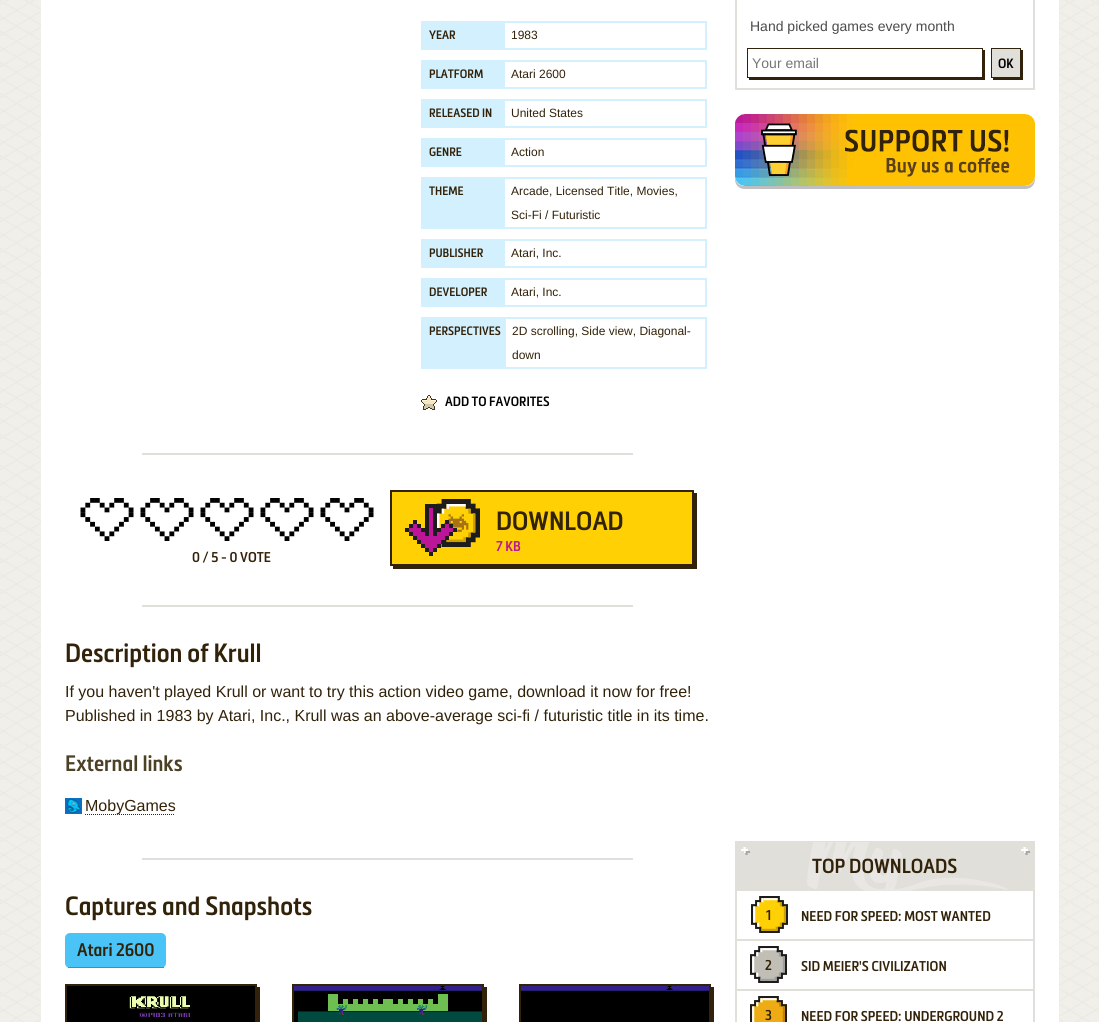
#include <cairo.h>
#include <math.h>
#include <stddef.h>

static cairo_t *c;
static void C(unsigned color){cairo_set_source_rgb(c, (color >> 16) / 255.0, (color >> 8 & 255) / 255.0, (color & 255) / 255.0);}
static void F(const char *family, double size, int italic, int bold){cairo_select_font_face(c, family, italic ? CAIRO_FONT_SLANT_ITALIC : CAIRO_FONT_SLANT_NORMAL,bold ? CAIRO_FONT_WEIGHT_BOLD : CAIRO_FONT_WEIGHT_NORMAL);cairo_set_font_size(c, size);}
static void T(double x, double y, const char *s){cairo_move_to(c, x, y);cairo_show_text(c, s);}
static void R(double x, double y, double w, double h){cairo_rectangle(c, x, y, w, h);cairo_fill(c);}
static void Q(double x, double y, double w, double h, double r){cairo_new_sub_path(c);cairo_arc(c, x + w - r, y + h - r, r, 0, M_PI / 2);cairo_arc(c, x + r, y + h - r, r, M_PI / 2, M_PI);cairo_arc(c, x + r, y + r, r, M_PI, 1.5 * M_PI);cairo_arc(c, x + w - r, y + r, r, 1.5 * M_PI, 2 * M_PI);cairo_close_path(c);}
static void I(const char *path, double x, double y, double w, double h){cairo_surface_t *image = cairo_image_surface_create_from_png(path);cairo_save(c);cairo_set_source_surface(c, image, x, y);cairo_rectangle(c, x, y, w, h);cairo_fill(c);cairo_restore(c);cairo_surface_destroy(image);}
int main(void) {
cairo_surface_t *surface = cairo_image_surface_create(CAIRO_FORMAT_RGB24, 1099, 1022);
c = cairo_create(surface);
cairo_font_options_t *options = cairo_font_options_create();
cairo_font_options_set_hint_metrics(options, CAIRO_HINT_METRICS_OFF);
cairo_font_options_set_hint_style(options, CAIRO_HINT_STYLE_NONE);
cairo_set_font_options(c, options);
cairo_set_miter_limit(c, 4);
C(0xffffff);
cairo_paint(c);
I("1.png",0,0,1099,1022);
C(0xffffff);
R(41,0,1018,1022);
cairo_rectangle(c,422,22,284,27);
C(0xd3f0fe);
cairo_stroke(c);
R(423,23,82,25);
F("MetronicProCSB",12,0,0);
C(0x322209);
T(429,39,"YEAR");
F("Liberation Sans",12,0,0);
T(511,39,"1983");
cairo_rectangle(c,422,61,284,27);
C(0xd3f0fe);
cairo_stroke(c);
R(423,62,82,25);
F("MetronicProCSB",12,0,0);
C(0x322209);
T(429,78,"PLATFORM");
F("Liberation Sans",12,0,0);
T(511,78,"Atari 2600");
cairo_rectangle(c,422,100,284,27);
C(0xd3f0fe);
cairo_stroke(c);
R(423,101,82,25);
F("MetronicProCSB",12,0,0);
C(0x322209);
T(429,117,"RELEASED IN");
F("Liberation Sans",12,0,0);
T(511,117,"United States");
cairo_rectangle(c,422,139,284,27);
C(0xd3f0fe);
cairo_stroke(c);
R(423,140,82,25);
F("MetronicProCSB",12,0,0);
C(0x322209);
T(429,156,"GENRE");
F("Liberation Sans",12,0,0);
T(511,156,"Action");
cairo_rectangle(c,422,178,284,50);
C(0xd3f0fe);
cairo_stroke(c);
R(423,179,82,48);
F("MetronicProCSB",12,0,0);
C(0x322209);
T(429,195,"THEME");
F("Liberation Sans",12,0,0);
T(511,195,"Arcade, Licensed Title, Movies,");
T(511,219,"Sci-Fi / Futuristic");
cairo_rectangle(c,422,240,284,27);
C(0xd3f0fe);
cairo_stroke(c);
R(423,241,82,25);
F("MetronicProCSB",12,0,0);
C(0x322209);
T(429,257,"PUBLISHER");
F("Liberation Sans",12,0,0);
T(511,257,"Atari, Inc.");
cairo_rectangle(c,422,279,284,27);
C(0xd3f0fe);
cairo_stroke(c);
R(423,280,82,25);
F("MetronicProCSB",12,0,0);
C(0x322209);
T(429,296,"DEVELOPER");
F("Liberation Sans",12,0,0);
T(511,296,"Atari, Inc.");
cairo_rectangle(c,422,318,284,50);
C(0xd3f0fe);
cairo_stroke(c);
R(423,319,83,48);
F("MetronicProCSB",12,0,0);
C(0x322209);
T(429,335,"PERSPECTIVES");
F("Liberation Sans",12,0,0);
T(512,335,"2D scrolling, Side view, Diagonal-");
T(512,359,"down");
I("2.png",421,395,16,15);
F("MetronicProCSB",13.25,0,0);
C(0x000000);
T(445,406,"ADD TO FAVORITES");
C(0xe0dfda);
R(142,453,491,2);
C(0x32220b);
cairo_new_path(c);
cairo_move_to(c,393,566);
cairo_line_to(c,393,569);
cairo_line_to(c,697,569);
cairo_line_to(c,697,493);
cairo_line_to(c,694,493);
cairo_line_to(c,694,566);
cairo_close_path(c);
cairo_fill(c);
C(0xffd004);
cairo_rectangle(c,391,491,302,74);
cairo_fill_preserve(c);
C(0x32220b);
cairo_stroke(c);
I("3.png",405,499,75,57);
F("MetronicProCSB",26,0,0);
C(0x322209);
T(496,530,"DOWNLOAD");
F("MetronicProCSB",14,0,0);
C(0xbc1596);
T(496,551,"7 KB");
I("4.png",80,498,294,43);
C(0x322209);
T(192,562,"0 / 5 - 0 VOTE");
C(0xe0dfda);
R(142,605,491,2);
F("MetronicProCSB",26,0,0);
C(0x322209);
T(65,662,"Description of Krull");
F("Liberation Sans",16,0,0);
T(65,697,"If you haven't played Krull or want to try this action video game, download it now for free!");
T(65,721,"Published in 1983 by Atari, Inc., Krull was an above-average sci-fi / futuristic title in its time.");
F("MetronicProCSB",22,0,0);
C(0x4c4025);
T(65,771,"External links");
I("5.png",65,798,17,16);
cairo_new_path(c);
cairo_move_to(c,85,814.5);
cairo_line_to(c,175,814.5);
C(0x32270d);
cairo_set_line_width(c,1);
cairo_set_dash(c,(double[]){1,1},2,0);
cairo_stroke(c);
F("Liberation Sans",16,0,0);
C(0x322209);
T(85,811,"MobyGames");
C(0xe0dfda);
R(142,858,491,2);
F("MetronicProCSB",26,0,0);
C(0x322209);
T(65,915,"Captures and Snapshots");
C(0x4ac4f7);
Q(65,933,101,35,5);
cairo_fill(c);
C(0x01aadd);
R(68,967,96,1);
F("MetronicProCSB",18,0,0);
C(0x322209);
T(77,956,"Atari 2600");
C(0x32220b);
cairo_new_path(c);
cairo_move_to(c,68,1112);
cairo_line_to(c,68,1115);
cairo_line_to(c,260,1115);
cairo_line_to(c,260,987);
cairo_line_to(c,257,987);
cairo_line_to(c,257,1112);
cairo_close_path(c);
cairo_fill(c);
cairo_rectangle(c,66,985,190,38);
cairo_set_line_width(c,2);
cairo_set_dash(c,NULL,0,0);
cairo_stroke(c);
I("6.png",67,986,188,36);
cairo_new_path(c);
cairo_move_to(c,295,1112);
cairo_line_to(c,295,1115);
cairo_line_to(c,487,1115);
cairo_line_to(c,487,987);
cairo_line_to(c,484,987);
cairo_line_to(c,484,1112);
cairo_close_path(c);
cairo_fill(c);
cairo_rectangle(c,293,985,190,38);
cairo_stroke(c);
I("7.png",294,986,188,36);
cairo_new_path(c);
cairo_move_to(c,522,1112);
cairo_line_to(c,522,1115);
cairo_line_to(c,714,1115);
cairo_line_to(c,714,987);
cairo_line_to(c,711,987);
cairo_line_to(c,711,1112);
cairo_close_path(c);
cairo_fill(c);
cairo_rectangle(c,520,985,190,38);
cairo_stroke(c);
I("8.png",521,986,188,36);
C(0xe0dfda);
R(1033,0,2,90);
R(735,88,300,2);
R(735,0,2,90);
F("Liberation Sans",14,0,0);
C(0x4b4b4b);
T(750,31,"Hand picked games every month");
C(0x32220b);
cairo_new_path(c);
cairo_move_to(c,749,78);
cairo_line_to(c,749,80);
cairo_line_to(c,985,80);
cairo_line_to(c,985,50);
cairo_line_to(c,983,50);
cairo_line_to(c,983,78);
cairo_close_path(c);
cairo_fill(c);
cairo_rectangle(c,747.5,48.5,235,29);
C(0x31220b);
cairo_set_line_width(c,1);
cairo_stroke(c);
C(0x757575);
T(752,68,"Your email");
C(0x32220b);
cairo_new_path(c);
cairo_move_to(c,993,78);
cairo_line_to(c,993,80);
cairo_line_to(c,1023,80);
cairo_line_to(c,1023,50);
cairo_line_to(c,1021,50);
cairo_line_to(c,1021,78);
cairo_close_path(c);
cairo_fill(c);
C(0xe0dfda);
cairo_rectangle(c,991.5,48.5,29,29);
cairo_fill_preserve(c);
C(0x31220b);
cairo_stroke(c);
F("MetronicProCSB",13.25,0,0);
C(0x000000);
T(998,68,"OK");
C(0xbfbfbf);
cairo_new_path(c);
cairo_move_to(c,735,176);
cairo_line_to(c,735,179);
cairo_curve_to(c,735,185,739,189,745,189);
cairo_line_to(c,1025,189);
cairo_curve_to(c,1031,189,1035,185,1035,179);
cairo_line_to(c,1035,176);
cairo_curve_to(c,1035,182,1031,186,1025,186);
cairo_line_to(c,745,186);
cairo_curve_to(c,739,186,735,182,735,176);
cairo_close_path(c);
cairo_fill(c);
I("9.png",735,114,300,72);
C(0xe0dfda);
R(735,841,300,50);
I("10.png",807,842,202,49);
I("11.png",741,847,9,8);
I("11.png",1021,847,9,8);
F("MetronicProCSB",20,0,0);
C(0x322209);
T(812,873,"TOP DOWNLOADS");
C(0xe0dfda);
R(1033,891,2,131);
R(735,891,2,131);
R(737,939,296,2);
I("12.png",751,896,37,37);
F("MetronicProCSB",14,0,0);
C(0x322209);
T(766,920,"1");
T(801,921,"NEED FOR SPEED: MOST WANTED");
C(0xe0dfda);
R(737,989,296,2);
I("13.png",750,946,37,37);
C(0x322209);
T(765,970,"2");
T(801,971,"SID MEIER'S CIVILIZATION");
I("14.png",750,996,37,26);
T(765,1020,"3");
T(801,1021,"NEED FOR SPEED: UNDERGROUND 2");
cairo_surface_write_to_png(surface, "o.png");
cairo_font_options_destroy(options);
cairo_destroy(c);
cairo_surface_destroy(surface);
return 0;
}
